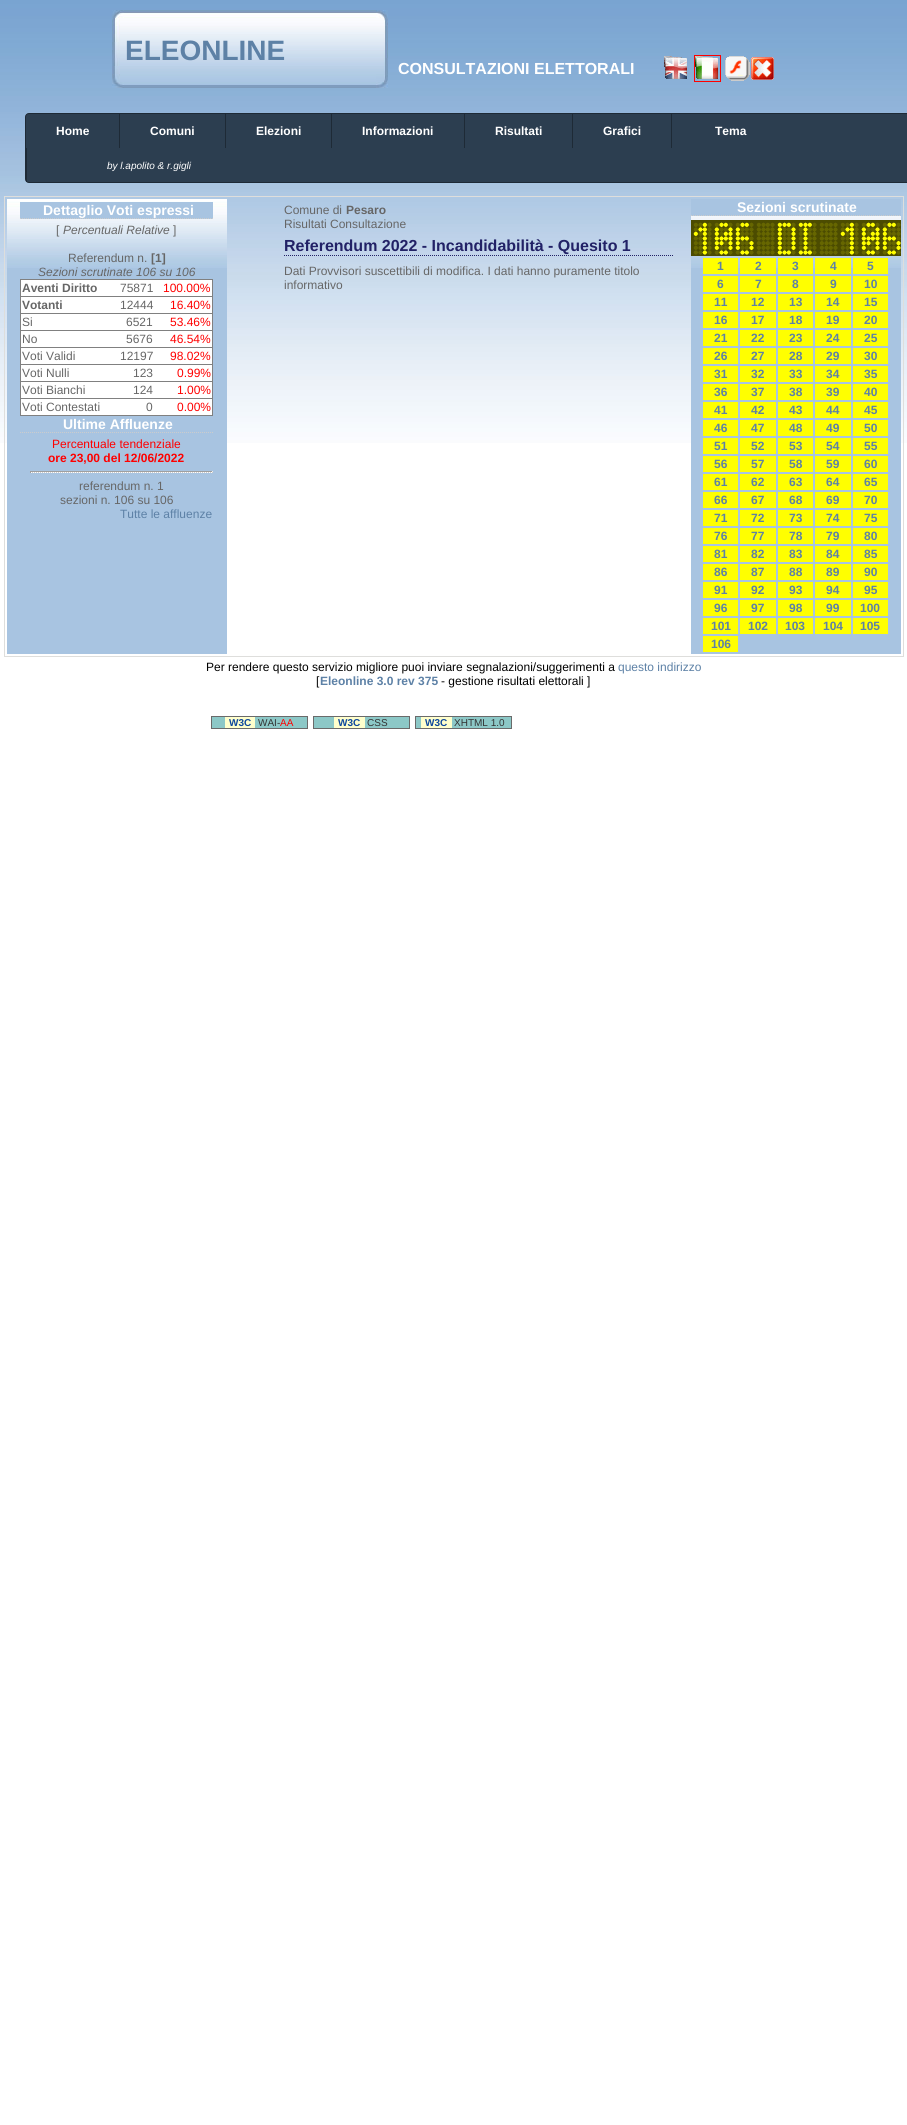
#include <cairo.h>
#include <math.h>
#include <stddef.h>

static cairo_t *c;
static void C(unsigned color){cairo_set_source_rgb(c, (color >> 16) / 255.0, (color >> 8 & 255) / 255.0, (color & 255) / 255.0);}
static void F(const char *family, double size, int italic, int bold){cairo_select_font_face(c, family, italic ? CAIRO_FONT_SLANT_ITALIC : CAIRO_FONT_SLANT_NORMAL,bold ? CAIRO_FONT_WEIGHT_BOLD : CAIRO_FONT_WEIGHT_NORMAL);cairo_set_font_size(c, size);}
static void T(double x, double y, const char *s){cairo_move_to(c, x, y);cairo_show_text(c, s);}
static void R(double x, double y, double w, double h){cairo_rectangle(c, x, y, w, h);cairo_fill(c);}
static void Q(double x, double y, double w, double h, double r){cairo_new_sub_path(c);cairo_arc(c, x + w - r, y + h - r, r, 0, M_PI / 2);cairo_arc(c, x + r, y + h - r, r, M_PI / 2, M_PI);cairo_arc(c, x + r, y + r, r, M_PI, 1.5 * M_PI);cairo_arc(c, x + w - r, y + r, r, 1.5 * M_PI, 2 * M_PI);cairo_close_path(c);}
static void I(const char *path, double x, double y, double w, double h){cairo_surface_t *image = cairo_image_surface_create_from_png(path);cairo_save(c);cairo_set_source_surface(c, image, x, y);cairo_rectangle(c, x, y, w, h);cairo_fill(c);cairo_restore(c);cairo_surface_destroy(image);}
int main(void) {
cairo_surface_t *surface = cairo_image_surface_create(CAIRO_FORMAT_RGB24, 907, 2125);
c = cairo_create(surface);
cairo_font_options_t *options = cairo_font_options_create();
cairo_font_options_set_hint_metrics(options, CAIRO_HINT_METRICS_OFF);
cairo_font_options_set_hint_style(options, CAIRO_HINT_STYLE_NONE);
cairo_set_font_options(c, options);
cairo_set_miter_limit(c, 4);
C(0xffffff);
cairo_paint(c);
I("1.png",0,0,907,443);
I("2.png",112,10,12,78);
I("3.png",124,10,252,78);
F("Liberation Sans",28,0,1);
C(0x5d81a6);
T(125,60,"ELEONLINE");
I("4.png",376,10,12,78);
F("Liberation Sans",16,0,1);
C(0xffffff);
T(398,74,"CONSULTAZIONI ELETTORALI");
I("5.png",664,56,23,23);
cairo_rectangle(c,694.5,55.5,26,26);
C(0xff0000);
cairo_set_line_width(c,1);
cairo_stroke(c);
I("6.png",695,56,23,23);
I("7.png",725,56,25,25);
I("8.png",751,57,23,23);
C(0x2c3e50);
Q(25.5,113.5,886,69,3.5);
cairo_fill_preserve(c);
C(0x1e2a36);
cairo_stroke(c);
F("Liberation Sans",12,0,1);
C(0xffffff);
T(56,135,"Home");
C(0x1e2a36);
R(119,114,1,34);
C(0xffffff);
T(150,135,"Comuni");
C(0x1e2a36);
R(225,114,1,34);
C(0xffffff);
T(256,135,"Elezioni");
C(0x1e2a36);
R(331,114,1,34);
C(0xffffff);
T(362,135,"Informazioni");
C(0x1e2a36);
R(464,114,1,34);
C(0xffffff);
T(495,135,"Risultati");
C(0x1e2a36);
R(572,114,1,34);
C(0xffffff);
T(603,135,"Grafici");
C(0x1e2a36);
R(671,114,1,34);
C(0xffffff);
T(715,135,"Tema");
C(0x1e2a36);
R(26,148,1,34);
F("Liberation Sans",10,1,0);
C(0xffffff);
T(107,169,"by l.apolito & r.gigli");
cairo_rectangle(c,4.5,196.5,899,460);
C(0xdededc);
cairo_stroke(c);
C(0xa8c4e1);
R(7,268,220,386);
I("9.png",7,199,220,69);
R(20,202,193,17);
cairo_new_path(c);
cairo_move_to(c,20,218.5);
cairo_line_to(c,213,218.5);
C(0xcccccc);
cairo_set_dash(c,(double[]){1,1},2,0);
cairo_stroke(c);
F("Liberation Sans",14,0,1);
C(0xffffff);
T(43,215,"Dettaglio Voti espressi");
F("Liberation Sans",12,0,0);
C(0x666666);
T(56,234,"[");
F("Liberation Sans",12,1,0);
T(63,234,"Percentuali Relative");
F("Liberation Sans",12,0,0);
T(173,234,"]");
T(68,262,"Referendum n.");
F("Liberation Sans",12,0,1);
T(151,262,"[1]");
F("Liberation Sans",12,1,0);
T(38,276,"Sezioni scrutinate 106 su 106");
C(0x808080);
R(20,279,193,137);
C(0xffffff);
R(21,280,191,16);
F("Liberation Sans",12,0,1);
C(0x666666);
T(22,292,"Aventi Diritto");
F("Liberation Sans",12,0,0);
T(120,292,"75871");
C(0xff0000);
T(163,292,"100.00%");
C(0xffffff);
R(21,297,191,16);
F("Liberation Sans",12,0,1);
C(0x666666);
T(22,309,"Votanti");
F("Liberation Sans",12,0,0);
T(120,309,"12444");
C(0xff0000);
T(170,309,"16.40%");
C(0xffffff);
R(21,314,191,16);
C(0x666666);
T(22,326,"Si");
T(126,326,"6521");
C(0xff0000);
T(170,326,"53.46%");
C(0xffffff);
R(21,331,191,16);
C(0x666666);
T(22,343,"No");
T(126,343,"5676");
C(0xff0000);
T(170,343,"46.54%");
C(0xffffff);
R(21,348,191,16);
C(0x666666);
T(22,360,"Voti Validi");
T(120,360,"12197");
C(0xff0000);
T(170,360,"98.02%");
C(0xffffff);
R(21,365,191,16);
C(0x666666);
T(22,377,"Voti Nulli");
T(133,377,"123");
C(0xff0000);
T(177,377,"0.99%");
C(0xffffff);
R(21,382,191,16);
C(0x666666);
T(22,394,"Voti Bianchi");
T(133,394,"124");
C(0xff0000);
T(177,394,"1.00%");
C(0xffffff);
R(21,399,191,16);
C(0x666666);
T(22,411,"Voti Contestati");
T(146,411,"0");
C(0xff0000);
T(177,411,"0.00%");
cairo_new_path(c);
cairo_move_to(c,20,432.5);
cairo_line_to(c,213,432.5);
C(0xcccccc);
cairo_stroke(c);
F("Liberation Sans",14,0,1);
C(0xffffff);
T(63,429,"Ultime Affluenze");
F("Liberation Sans",12,0,0);
C(0xff0000);
T(52,448,"Percentuale tendenziale");
F("Liberation Sans",12,0,1);
T(48,462,"ore 23,00 del 12/06/2022");
C(0xffffff);
R(30,472,183,1);
C(0x9f9f9f);
R(30,471,183,1);
C(0xeeeeee);
R(212,471,1,2);
cairo_new_path(c);
cairo_move_to(c,30,472.5);
cairo_line_to(c,213,472.5);
C(0xcccccc);
cairo_stroke(c);
C(0x9f9f9f);
R(30,471,1,2);
F("Liberation Sans",12,0,0);
C(0x666666);
T(79,490,"referendum n. 1");
T(60,504,"sezioni n. 106 su 106");
C(0x5d81a6);
T(120,518,"Tutte le affluenze");
C(0x666666);
T(284,214,"Comune di");
F("Liberation Sans",12,0,1);
T(346,214,"Pesaro");
F("Liberation Sans",12,0,0);
T(284,228,"Risultati Consultazione");
cairo_new_path(c);
cairo_move_to(c,284,255.5);
cairo_line_to(c,674,255.5);
C(0x222266);
cairo_stroke(c);
F("Liberation Sans",16,0,1);
T(284,251,"Referendum 2022 - Incandidabilità - Quesito 1");
F("Liberation Sans",12,0,0);
C(0x666666);
T(284,275,"Dati Provvisori suscettibili di modifica. I dati hanno puramente titolo");
T(284,289,"informativo");
C(0xa8c4e1);
R(691,268,210,386);
I("10.png",691,216,210,52);
R(691,199,210,17);
cairo_new_path(c);
cairo_move_to(c,691,215.5);
cairo_line_to(c,901,215.5);
C(0xcccccc);
cairo_stroke(c);
F("Liberation Sans",14,0,1);
C(0xffffff);
T(737,212,"Sezioni scrutinate");
I("11.png",691,220,210,36);
C(0xffff00);
R(703,258,35,16);
F("Liberation Sans",12,0,1);
C(0x5d81a6);
T(717,270,"1");
C(0xffff00);
R(740,258,36,16);
C(0x5d81a6);
T(755,270,"2");
C(0xffff00);
R(778,258,35,16);
C(0x5d81a6);
T(792,270,"3");
C(0xffff00);
R(815,258,36,16);
C(0x5d81a6);
T(830,270,"4");
C(0xffff00);
R(853,258,35,16);
C(0x5d81a6);
T(867,270,"5");
C(0xffff00);
R(703,276,35,16);
C(0x5d81a6);
T(717,288,"6");
C(0xffff00);
R(740,276,36,16);
C(0x5d81a6);
T(755,288,"7");
C(0xffff00);
R(778,276,35,16);
C(0x5d81a6);
T(792,288,"8");
C(0xffff00);
R(815,276,36,16);
C(0x5d81a6);
T(830,288,"9");
C(0xffff00);
R(853,276,35,16);
C(0x5d81a6);
T(864,288,"10");
C(0xffff00);
R(703,294,35,16);
C(0x5d81a6);
T(714,306,"11");
C(0xffff00);
R(740,294,36,16);
C(0x5d81a6);
T(751,306,"12");
C(0xffff00);
R(778,294,35,16);
C(0x5d81a6);
T(789,306,"13");
C(0xffff00);
R(815,294,36,16);
C(0x5d81a6);
T(826,306,"14");
C(0xffff00);
R(853,294,35,16);
C(0x5d81a6);
T(864,306,"15");
C(0xffff00);
R(703,312,35,16);
C(0x5d81a6);
T(714,324,"16");
C(0xffff00);
R(740,312,36,16);
C(0x5d81a6);
T(751,324,"17");
C(0xffff00);
R(778,312,35,16);
C(0x5d81a6);
T(789,324,"18");
C(0xffff00);
R(815,312,36,16);
C(0x5d81a6);
T(826,324,"19");
C(0xffff00);
R(853,312,35,16);
C(0x5d81a6);
T(864,324,"20");
C(0xffff00);
R(703,330,35,16);
C(0x5d81a6);
T(714,342,"21");
C(0xffff00);
R(740,330,36,16);
C(0x5d81a6);
T(751,342,"22");
C(0xffff00);
R(778,330,35,16);
C(0x5d81a6);
T(789,342,"23");
C(0xffff00);
R(815,330,36,16);
C(0x5d81a6);
T(826,342,"24");
C(0xffff00);
R(853,330,35,16);
C(0x5d81a6);
T(864,342,"25");
C(0xffff00);
R(703,348,35,16);
C(0x5d81a6);
T(714,360,"26");
C(0xffff00);
R(740,348,36,16);
C(0x5d81a6);
T(751,360,"27");
C(0xffff00);
R(778,348,35,16);
C(0x5d81a6);
T(789,360,"28");
C(0xffff00);
R(815,348,36,16);
C(0x5d81a6);
T(826,360,"29");
C(0xffff00);
R(853,348,35,16);
C(0x5d81a6);
T(864,360,"30");
C(0xffff00);
R(703,366,35,16);
C(0x5d81a6);
T(714,378,"31");
C(0xffff00);
R(740,366,36,16);
C(0x5d81a6);
T(751,378,"32");
C(0xffff00);
R(778,366,35,16);
C(0x5d81a6);
T(789,378,"33");
C(0xffff00);
R(815,366,36,16);
C(0x5d81a6);
T(826,378,"34");
C(0xffff00);
R(853,366,35,16);
C(0x5d81a6);
T(864,378,"35");
C(0xffff00);
R(703,384,35,16);
C(0x5d81a6);
T(714,396,"36");
C(0xffff00);
R(740,384,36,16);
C(0x5d81a6);
T(751,396,"37");
C(0xffff00);
R(778,384,35,16);
C(0x5d81a6);
T(789,396,"38");
C(0xffff00);
R(815,384,36,16);
C(0x5d81a6);
T(826,396,"39");
C(0xffff00);
R(853,384,35,16);
C(0x5d81a6);
T(864,396,"40");
C(0xffff00);
R(703,402,35,16);
C(0x5d81a6);
T(714,414,"41");
C(0xffff00);
R(740,402,36,16);
C(0x5d81a6);
T(751,414,"42");
C(0xffff00);
R(778,402,35,16);
C(0x5d81a6);
T(789,414,"43");
C(0xffff00);
R(815,402,36,16);
C(0x5d81a6);
T(826,414,"44");
C(0xffff00);
R(853,402,35,16);
C(0x5d81a6);
T(864,414,"45");
C(0xffff00);
R(703,420,35,16);
C(0x5d81a6);
T(714,432,"46");
C(0xffff00);
R(740,420,36,16);
C(0x5d81a6);
T(751,432,"47");
C(0xffff00);
R(778,420,35,16);
C(0x5d81a6);
T(789,432,"48");
C(0xffff00);
R(815,420,36,16);
C(0x5d81a6);
T(826,432,"49");
C(0xffff00);
R(853,420,35,16);
C(0x5d81a6);
T(864,432,"50");
C(0xffff00);
R(703,438,35,16);
C(0x5d81a6);
T(714,450,"51");
C(0xffff00);
R(740,438,36,16);
C(0x5d81a6);
T(751,450,"52");
C(0xffff00);
R(778,438,35,16);
C(0x5d81a6);
T(789,450,"53");
C(0xffff00);
R(815,438,36,16);
C(0x5d81a6);
T(826,450,"54");
C(0xffff00);
R(853,438,35,16);
C(0x5d81a6);
T(864,450,"55");
C(0xffff00);
R(703,456,35,16);
C(0x5d81a6);
T(714,468,"56");
C(0xffff00);
R(740,456,36,16);
C(0x5d81a6);
T(751,468,"57");
C(0xffff00);
R(778,456,35,16);
C(0x5d81a6);
T(789,468,"58");
C(0xffff00);
R(815,456,36,16);
C(0x5d81a6);
T(826,468,"59");
C(0xffff00);
R(853,456,35,16);
C(0x5d81a6);
T(864,468,"60");
C(0xffff00);
R(703,474,35,16);
C(0x5d81a6);
T(714,486,"61");
C(0xffff00);
R(740,474,36,16);
C(0x5d81a6);
T(751,486,"62");
C(0xffff00);
R(778,474,35,16);
C(0x5d81a6);
T(789,486,"63");
C(0xffff00);
R(815,474,36,16);
C(0x5d81a6);
T(826,486,"64");
C(0xffff00);
R(853,474,35,16);
C(0x5d81a6);
T(864,486,"65");
C(0xffff00);
R(703,492,35,16);
C(0x5d81a6);
T(714,504,"66");
C(0xffff00);
R(740,492,36,16);
C(0x5d81a6);
T(751,504,"67");
C(0xffff00);
R(778,492,35,16);
C(0x5d81a6);
T(789,504,"68");
C(0xffff00);
R(815,492,36,16);
C(0x5d81a6);
T(826,504,"69");
C(0xffff00);
R(853,492,35,16);
C(0x5d81a6);
T(864,504,"70");
C(0xffff00);
R(703,510,35,16);
C(0x5d81a6);
T(714,522,"71");
C(0xffff00);
R(740,510,36,16);
C(0x5d81a6);
T(751,522,"72");
C(0xffff00);
R(778,510,35,16);
C(0x5d81a6);
T(789,522,"73");
C(0xffff00);
R(815,510,36,16);
C(0x5d81a6);
T(826,522,"74");
C(0xffff00);
R(853,510,35,16);
C(0x5d81a6);
T(864,522,"75");
C(0xffff00);
R(703,528,35,16);
C(0x5d81a6);
T(714,540,"76");
C(0xffff00);
R(740,528,36,16);
C(0x5d81a6);
T(751,540,"77");
C(0xffff00);
R(778,528,35,16);
C(0x5d81a6);
T(789,540,"78");
C(0xffff00);
R(815,528,36,16);
C(0x5d81a6);
T(826,540,"79");
C(0xffff00);
R(853,528,35,16);
C(0x5d81a6);
T(864,540,"80");
C(0xffff00);
R(703,546,35,16);
C(0x5d81a6);
T(714,558,"81");
C(0xffff00);
R(740,546,36,16);
C(0x5d81a6);
T(751,558,"82");
C(0xffff00);
R(778,546,35,16);
C(0x5d81a6);
T(789,558,"83");
C(0xffff00);
R(815,546,36,16);
C(0x5d81a6);
T(826,558,"84");
C(0xffff00);
R(853,546,35,16);
C(0x5d81a6);
T(864,558,"85");
C(0xffff00);
R(703,564,35,16);
C(0x5d81a6);
T(714,576,"86");
C(0xffff00);
R(740,564,36,16);
C(0x5d81a6);
T(751,576,"87");
C(0xffff00);
R(778,564,35,16);
C(0x5d81a6);
T(789,576,"88");
C(0xffff00);
R(815,564,36,16);
C(0x5d81a6);
T(826,576,"89");
C(0xffff00);
R(853,564,35,16);
C(0x5d81a6);
T(864,576,"90");
C(0xffff00);
R(703,582,35,16);
C(0x5d81a6);
T(714,594,"91");
C(0xffff00);
R(740,582,36,16);
C(0x5d81a6);
T(751,594,"92");
C(0xffff00);
R(778,582,35,16);
C(0x5d81a6);
T(789,594,"93");
C(0xffff00);
R(815,582,36,16);
C(0x5d81a6);
T(826,594,"94");
C(0xffff00);
R(853,582,35,16);
C(0x5d81a6);
T(864,594,"95");
C(0xffff00);
R(703,600,35,16);
C(0x5d81a6);
T(714,612,"96");
C(0xffff00);
R(740,600,36,16);
C(0x5d81a6);
T(751,612,"97");
C(0xffff00);
R(778,600,35,16);
C(0x5d81a6);
T(789,612,"98");
C(0xffff00);
R(815,600,36,16);
C(0x5d81a6);
T(826,612,"99");
C(0xffff00);
R(853,600,35,16);
C(0x5d81a6);
T(860,612,"100");
C(0xffff00);
R(703,618,35,16);
C(0x5d81a6);
T(711,630,"101");
C(0xffff00);
R(740,618,36,16);
C(0x5d81a6);
T(748,630,"102");
C(0xffff00);
R(778,618,35,16);
C(0x5d81a6);
T(785,630,"103");
C(0xffff00);
R(815,618,36,16);
C(0x5d81a6);
T(823,630,"104");
C(0xffff00);
R(853,618,35,16);
C(0x5d81a6);
T(860,630,"105");
C(0xffff00);
R(703,636,35,16);
C(0x5d81a6);
T(711,648,"106");
F("Liberation Sans",12,0,0);
C(0x000000);
T(206,671,"Per rendere questo servizio migliore puoi inviare segnalazioni/suggerimenti a");
C(0x5d81a6);
T(618,671,"questo indirizzo");
C(0x000000);
T(316,685,"[");
F("Liberation Sans",12,0,1);
C(0x5d81a6);
T(320,685,"Eleonline 3.0 rev 375");
F("Liberation Sans",12,0,0);
C(0x000000);
T(441,685,"- gestione risultati elettorali ]");
cairo_rectangle(c,211.5,716.5,96,12);
C(0x6a6a6a);
cairo_set_dash(c,NULL,0,0);
cairo_stroke(c);
C(0x8cc8c7);
R(212,717,95,11);
C(0xffffcc);
R(225,717,30,11);
F("Liberation Sans",10,0,1);
C(0x0c479d);
T(229,726,"W3C");
F("Liberation Sans",10,0,0);
C(0x333333);
T(258,726,"WAI-");
C(0xff0000);
T(280,726,"AA");
cairo_rectangle(c,313.5,716.5,96,12);
C(0x6a6a6a);
cairo_stroke(c);
C(0x8cc8c7);
R(314,717,95,11);
C(0xffffcc);
R(334,717,31,11);
F("Liberation Sans",10,0,1);
C(0x0c479d);
T(338,726,"W3C");
F("Liberation Sans",10,0,0);
C(0x333333);
T(367,726,"CSS");
cairo_rectangle(c,415.5,716.5,96,12);
C(0x6a6a6a);
cairo_stroke(c);
C(0x8cc8c7);
R(416,717,95,11);
C(0xffffcc);
R(421,717,31,11);
F("Liberation Sans",10,0,1);
C(0x0c479d);
T(425,726,"W3C");
F("Liberation Sans",10,0,0);
C(0x333333);
T(454,726,"XHTML 1.0");
cairo_surface_write_to_png(surface, "o.png");
cairo_font_options_destroy(options);
cairo_destroy(c);
cairo_surface_destroy(surface);
return 0;
}
